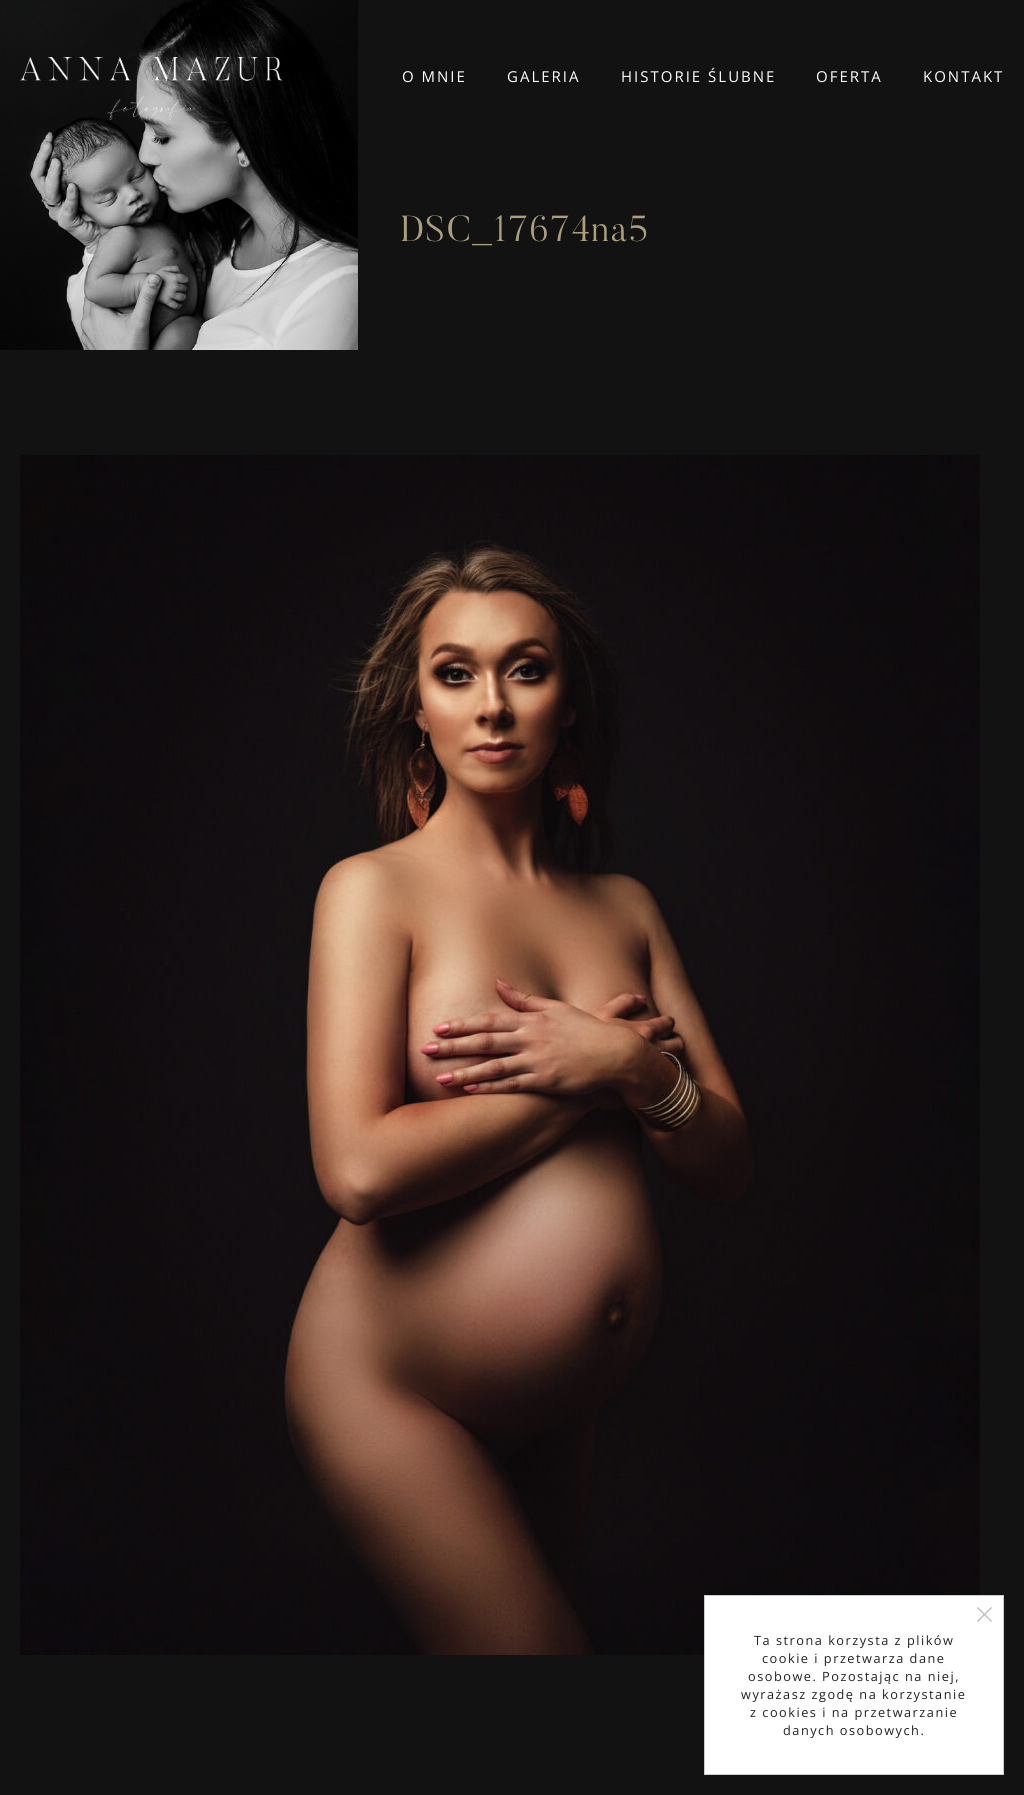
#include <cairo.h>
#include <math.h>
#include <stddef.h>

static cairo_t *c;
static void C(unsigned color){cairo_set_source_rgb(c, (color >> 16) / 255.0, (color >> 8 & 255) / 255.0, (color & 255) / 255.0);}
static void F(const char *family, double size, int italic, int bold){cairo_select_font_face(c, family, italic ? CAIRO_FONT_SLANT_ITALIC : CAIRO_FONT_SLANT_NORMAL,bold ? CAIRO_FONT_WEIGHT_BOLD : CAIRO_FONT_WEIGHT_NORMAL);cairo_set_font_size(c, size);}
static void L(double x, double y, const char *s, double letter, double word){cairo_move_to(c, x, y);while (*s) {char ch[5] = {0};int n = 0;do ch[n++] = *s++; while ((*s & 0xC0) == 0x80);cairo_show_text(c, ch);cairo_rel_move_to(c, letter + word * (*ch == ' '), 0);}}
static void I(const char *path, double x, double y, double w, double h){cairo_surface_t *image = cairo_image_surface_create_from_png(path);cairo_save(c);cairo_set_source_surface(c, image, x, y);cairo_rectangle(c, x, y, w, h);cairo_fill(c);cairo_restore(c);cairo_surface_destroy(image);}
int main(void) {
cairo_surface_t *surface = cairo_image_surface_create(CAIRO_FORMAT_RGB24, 1024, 1795);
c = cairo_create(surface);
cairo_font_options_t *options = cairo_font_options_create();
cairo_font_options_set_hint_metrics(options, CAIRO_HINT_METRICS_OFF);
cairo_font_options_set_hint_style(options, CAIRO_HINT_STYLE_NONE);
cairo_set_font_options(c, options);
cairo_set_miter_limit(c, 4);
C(0x121212);
cairo_paint(c);
I("2.png",0,0,358,350);
I("1.png",20,57,263,63);
F("Open Sans",15,0,0);
C(0xffffff);
L(402,82,"O MNIE",2,0);
L(507,82,"GALERIA",2,0);
L(621,82,"HISTORIE ŚLUBNE",2,0);
L(816,82,"OFERTA",2,0);
L(923,82,"KONTAKT",2,0);
F("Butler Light",36,0,0);
C(0xad9f7c);
L(400,241,"DSC_17674na5",1.5,0);
I("3.png",20,455,960,1200);
C(0xffffff);
cairo_rectangle(c,704.5,1595.5,299,179);
cairo_fill_preserve(c);
C(0xcccccc);
cairo_set_line_width(c,1);
cairo_stroke(c);
I("4.png",977,1607,15,15);
F("Open Sans",12.75,0,0);
C(0x222222);
L(754,1645,"Ta strona korzysta z plików",1.5,0);
L(762,1663,"cookie i przetwarza dane",1.5,0);
L(748,1681,"osobowe. Pozostając na niej,",1.5,0);
L(741,1699,"wyrażasz zgodę na korzystanie",1.5,0);
L(750,1717,"z cookies i na przetwarzanie",1.5,0);
L(783,1735,"danych osobowych.",1.5,0);
cairo_surface_write_to_png(surface, "o.png");
cairo_font_options_destroy(options);
cairo_destroy(c);
cairo_surface_destroy(surface);
return 0;
}
